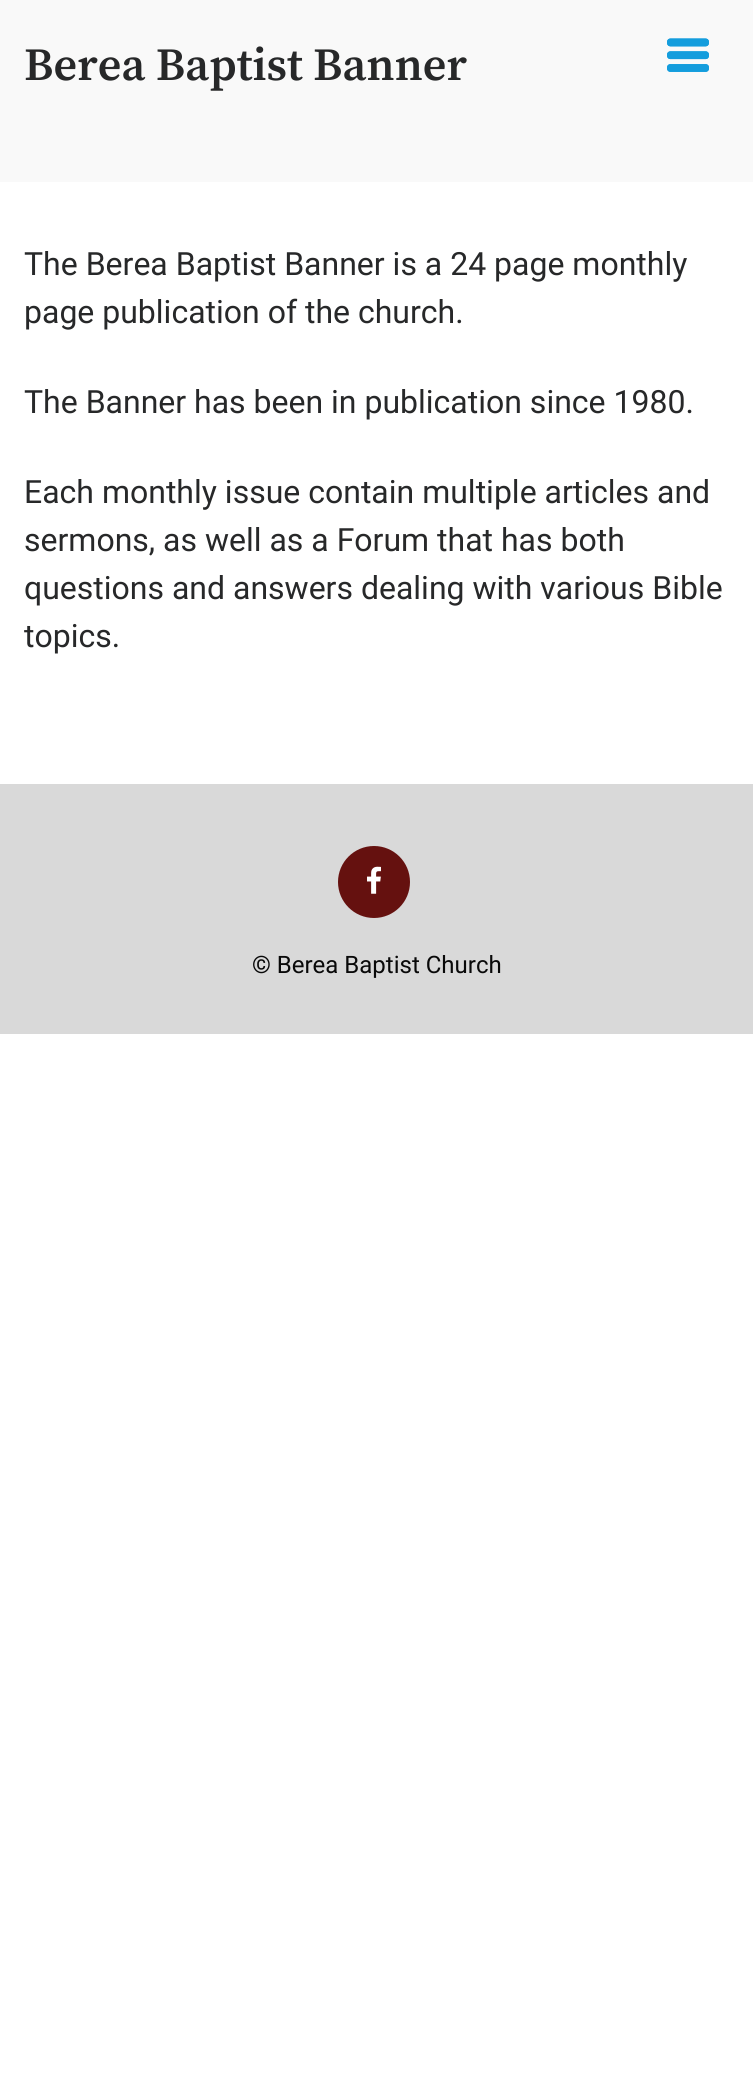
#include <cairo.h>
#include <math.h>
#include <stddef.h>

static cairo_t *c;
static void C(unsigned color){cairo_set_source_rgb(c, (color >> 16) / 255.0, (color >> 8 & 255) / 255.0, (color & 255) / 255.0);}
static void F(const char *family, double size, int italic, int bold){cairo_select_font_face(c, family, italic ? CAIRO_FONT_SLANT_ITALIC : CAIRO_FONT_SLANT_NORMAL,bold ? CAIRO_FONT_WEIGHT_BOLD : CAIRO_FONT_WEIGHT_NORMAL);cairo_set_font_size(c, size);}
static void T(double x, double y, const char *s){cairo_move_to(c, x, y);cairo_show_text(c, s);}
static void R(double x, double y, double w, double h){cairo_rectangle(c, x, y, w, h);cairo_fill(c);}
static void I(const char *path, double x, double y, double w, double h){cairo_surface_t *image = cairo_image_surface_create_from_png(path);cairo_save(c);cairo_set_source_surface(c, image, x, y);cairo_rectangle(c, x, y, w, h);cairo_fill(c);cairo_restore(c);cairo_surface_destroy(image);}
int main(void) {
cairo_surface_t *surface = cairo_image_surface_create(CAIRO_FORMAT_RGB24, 753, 2100);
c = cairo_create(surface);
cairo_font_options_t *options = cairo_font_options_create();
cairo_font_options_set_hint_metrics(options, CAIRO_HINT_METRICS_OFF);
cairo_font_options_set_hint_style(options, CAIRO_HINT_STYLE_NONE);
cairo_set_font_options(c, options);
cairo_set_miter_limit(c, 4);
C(0xffffff);
cairo_paint(c);
C(0xf9f9f9);
R(0,0,753,182);
I("1.png",667,38,42,34);
I("2.png",667,38,42,34);
F("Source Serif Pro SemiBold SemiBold",46.1,0,0);
C(0x272829);
T(24,80,"Berea Baptist Banner");
F("Roboto",32,0,0);
T(24,275,"The Berea Baptist Banner is a 24 page monthly");
T(24,323,"page publication of the church.");
T(24,413,"The Banner has been in publication since 1980.");
T(24,503,"Each monthly issue contain multiple articles and");
T(24,551,"sermons, as well as a Forum that has both");
T(24,599,"questions and answers dealing with various Bible");
T(24,647,"topics.");
C(0xd9d9d9);
R(0,784,753,250);
C(0x65110f);
cairo_new_path(c);
cairo_arc(c,374,882,36,0,2 * M_PI);
cairo_fill(c);
I("3.png",367,866,14,28);
F("Roboto",24,0,0);
C(0x090909);
T(252,973,"© Berea Baptist Church");
cairo_surface_write_to_png(surface, "o.png");
cairo_font_options_destroy(options);
cairo_destroy(c);
cairo_surface_destroy(surface);
return 0;
}
